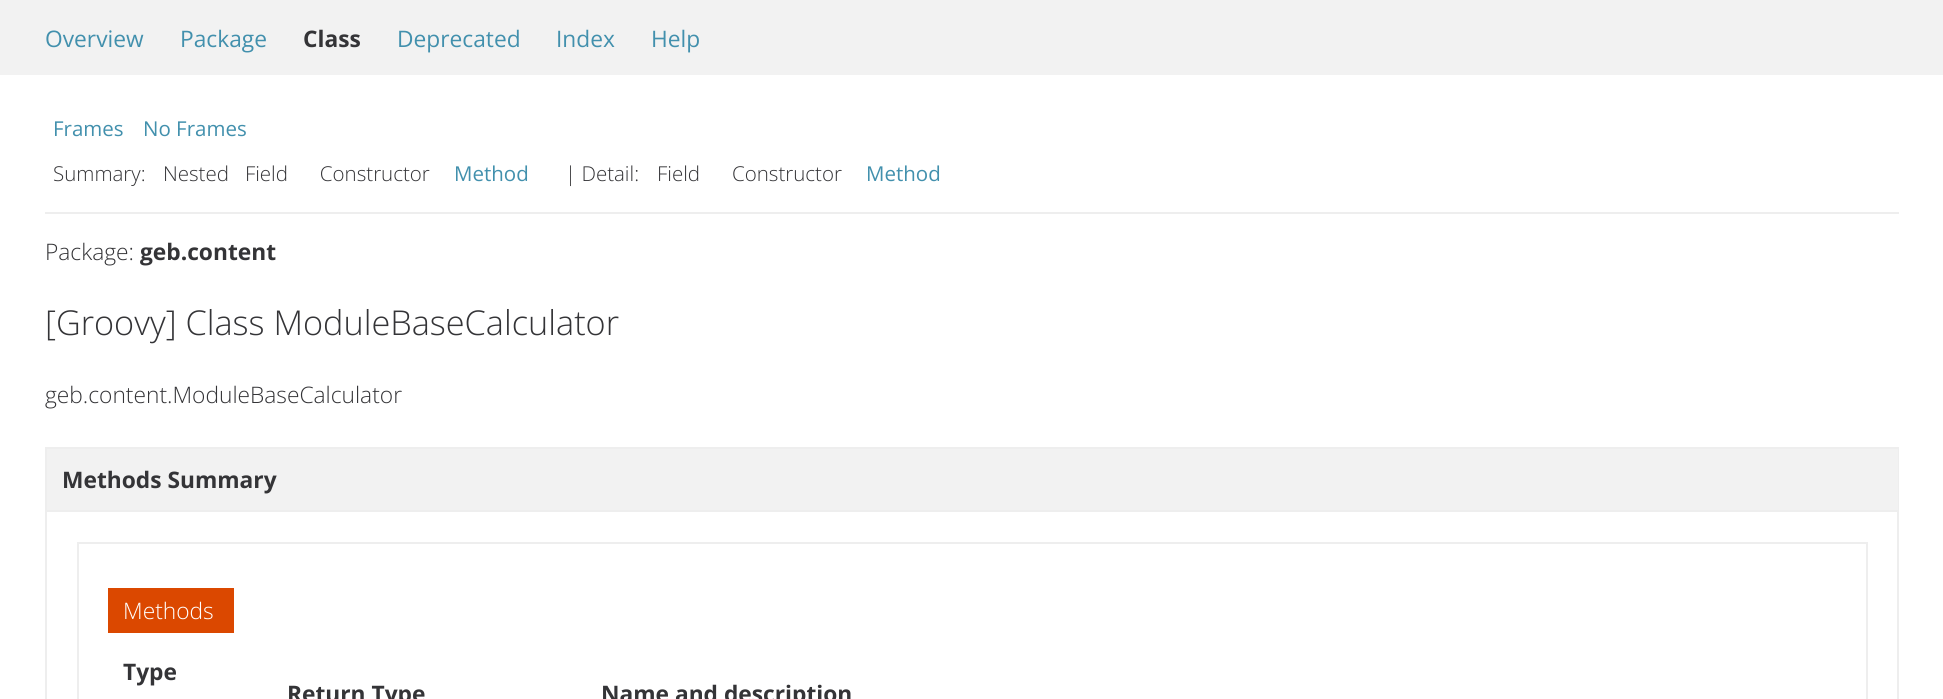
#include <cairo.h>
#include <math.h>
#include <stddef.h>

static cairo_t *c;
static void C(unsigned color){cairo_set_source_rgb(c, (color >> 16) / 255.0, (color >> 8 & 255) / 255.0, (color & 255) / 255.0);}
static void F(const char *family, double size, int italic, int bold){cairo_select_font_face(c, family, italic ? CAIRO_FONT_SLANT_ITALIC : CAIRO_FONT_SLANT_NORMAL,bold ? CAIRO_FONT_WEIGHT_BOLD : CAIRO_FONT_WEIGHT_NORMAL);cairo_set_font_size(c, size);}
static void T(double x, double y, const char *s){cairo_move_to(c, x, y);cairo_show_text(c, s);}
static void R(double x, double y, double w, double h){cairo_rectangle(c, x, y, w, h);cairo_fill(c);}
int main(void) {
cairo_surface_t *surface = cairo_image_surface_create(CAIRO_FORMAT_RGB24, 1943, 699);
c = cairo_create(surface);
cairo_font_options_t *options = cairo_font_options_create();
cairo_font_options_set_hint_metrics(options, CAIRO_HINT_METRICS_OFF);
cairo_font_options_set_hint_style(options, CAIRO_HINT_STYLE_NONE);
cairo_set_font_options(c, options);
cairo_set_miter_limit(c, 4);
C(0xffffff);
cairo_paint(c);
C(0xf2f2f2);
R(0,0,1943,75);
F("Open Sans",22.75,0,0);
C(0x4290ad);
T(45,47,"Overview");
T(180,47,"Package");
F("Open Sans",22.75,0,1);
C(0x343437);
T(303,47,"Class");
F("Open Sans",22.75,0,0);
C(0x4290ad);
T(397,47,"Deprecated");
T(556,47,"Index");
T(651,47,"Help");
C(0xeeeeee);
R(45,212,1854,2);
F("Open Sans",20.5,0,0);
C(0x4290ad);
T(53,136,"Frames");
T(143,136,"No Frames");
F("Open Sans Light",20.5,0,0);
C(0x343437);
T(53,181,"Summary:");
T(163,181,"Nested   Field      Constructor");
F("Open Sans",20.5,0,0);
C(0x4290ad);
T(454,181,"Method");
F("Open Sans Light",20.5,0,0);
C(0x343437);
T(565,181,"| Detail:");
T(657,181,"Field      Constructor");
F("Open Sans",20.5,0,0);
C(0x4290ad);
T(866,181,"Method");
F("Open Sans Light",22.75,0,0);
C(0x343437);
T(45,260,"Package:");
F("Open Sans",22.75,0,1);
T(140,260,"geb.content");
F("Open Sans Light",34.25,0,0);
T(45,335,"[Groovy] Class ModuleBaseCalculator");
F("Open Sans Light",22.75,0,0);
T(45,403,"geb.content.ModuleBaseCalculator");
cairo_rectangle(c,46,448,1852,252);
C(0xeeeeee);
cairo_stroke(c);
C(0xf2f2f2);
R(47,449,1851,61);
C(0xeeeeee);
R(47,510,1851,2);
F("Open Sans",22.75,0,1);
C(0x343437);
T(62,488,"Methods Summary");
cairo_rectangle(c,78,543,1789,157);
C(0xeeeeee);
cairo_stroke(c);
C(0xdb4800);
R(108,588,126,45);
F("Open Sans Light",22.75,0,0);
C(0xffffff);
T(123,619,"Methods");
F("Open Sans",22.75,0,1);
C(0x343437);
T(123,680,"Type");
T(287,702,"Return Type");
T(601,702,"Name and description");
cairo_surface_write_to_png(surface, "o.png");
cairo_font_options_destroy(options);
cairo_destroy(c);
cairo_surface_destroy(surface);
return 0;
}
